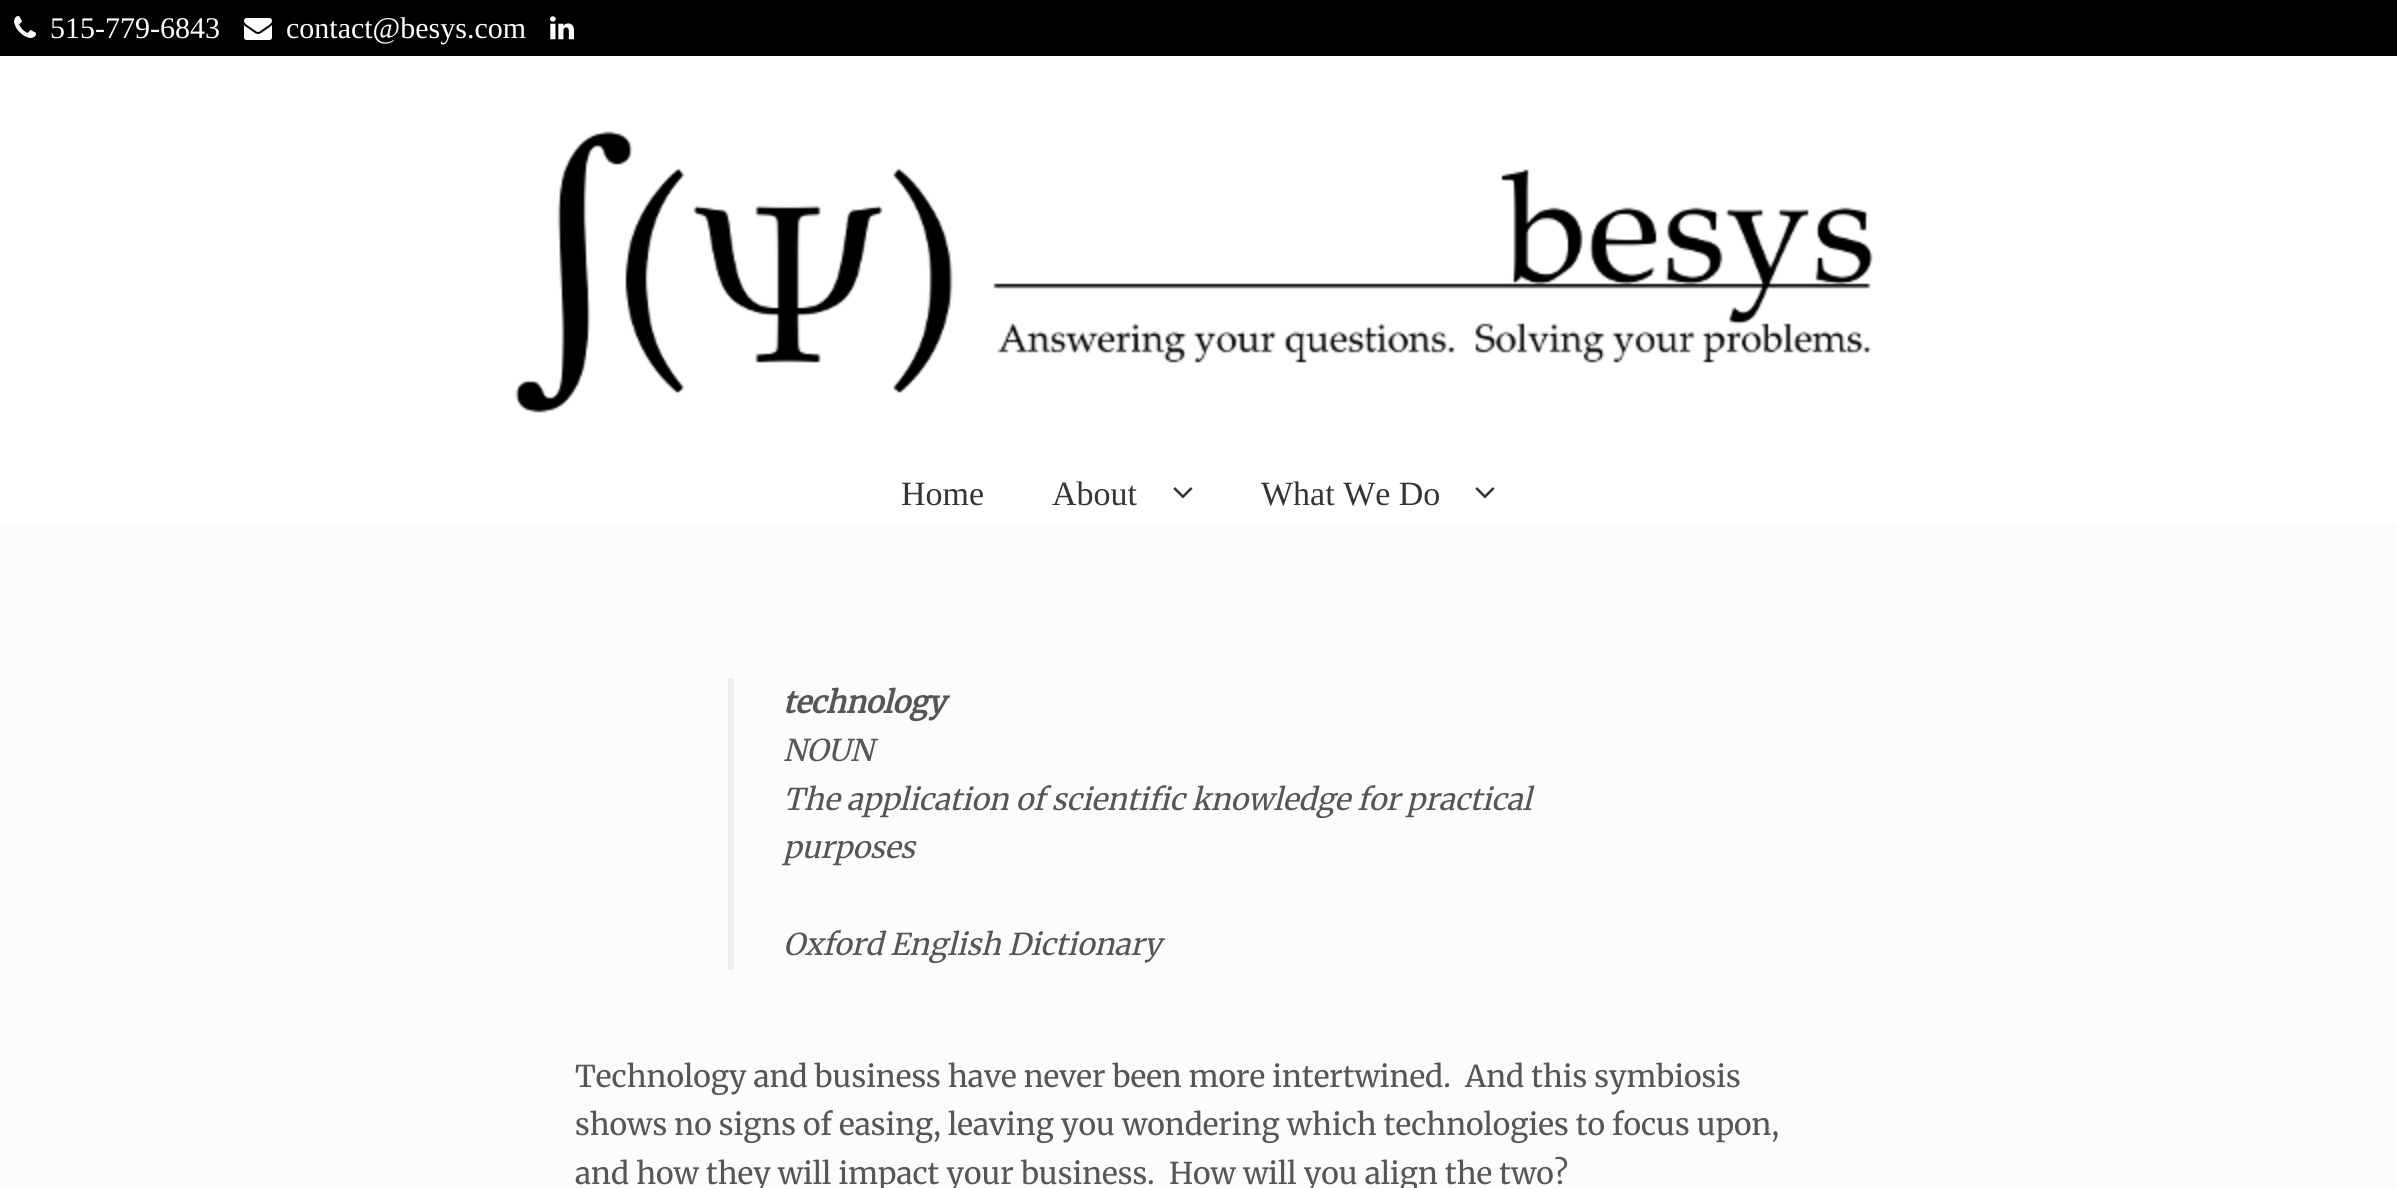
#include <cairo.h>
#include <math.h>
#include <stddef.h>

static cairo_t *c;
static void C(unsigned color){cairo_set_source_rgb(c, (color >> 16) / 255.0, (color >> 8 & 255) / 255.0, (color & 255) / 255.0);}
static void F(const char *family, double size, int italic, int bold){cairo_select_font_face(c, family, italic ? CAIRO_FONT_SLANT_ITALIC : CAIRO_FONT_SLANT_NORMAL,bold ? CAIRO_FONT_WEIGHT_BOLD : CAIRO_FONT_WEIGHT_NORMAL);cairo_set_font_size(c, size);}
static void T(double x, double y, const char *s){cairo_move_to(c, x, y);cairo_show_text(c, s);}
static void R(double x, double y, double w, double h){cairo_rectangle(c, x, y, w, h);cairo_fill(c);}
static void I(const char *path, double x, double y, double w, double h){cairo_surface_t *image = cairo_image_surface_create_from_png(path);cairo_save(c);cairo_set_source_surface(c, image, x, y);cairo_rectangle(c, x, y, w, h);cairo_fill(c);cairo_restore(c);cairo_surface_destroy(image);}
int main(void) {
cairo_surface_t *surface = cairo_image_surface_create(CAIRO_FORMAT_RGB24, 2397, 1188);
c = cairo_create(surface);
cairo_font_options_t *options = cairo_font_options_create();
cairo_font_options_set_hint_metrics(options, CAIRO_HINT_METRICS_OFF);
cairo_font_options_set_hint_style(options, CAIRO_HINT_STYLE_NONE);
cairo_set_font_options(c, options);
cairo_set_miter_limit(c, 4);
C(0xfcfcfc);
cairo_paint(c);
C(0x000000);
R(0,0,2397,56);
I("1.png",14,16,22,22);
F("Liberation Serif",30,0,0);
C(0xffffff);
T(50,38,"515-779-6843");
I("2.png",244,18,28,22);
T(286,38,"contact@besys.com");
I("3.png",550,16,24,24);
R(0,56,2397,466);
I("4.png",515,131,1358,282);
F("Liberation Serif",34,0,0);
C(0x353535);
T(901,505,"Home");
T(1052,505,"About");
I("5.png",1173,487,20,12);
T(1261,505,"What We Do");
I("5.png",1475,487,20,12);
C(0xefefef);
R(728,678,6,292);
F("Merriweather",30,1,1);
C(0x565656);
T(783,713,"technology");
F("Merriweather Light",30,1,0);
T(783,761,"NOUN");
T(783,810,"The application of scientific knowledge for practical");
T(783,858,"purposes");
T(783,955,"Oxford English Dictionary");
F("Merriweather Light",30,0,0);
T(575,1087,"Technology and business have never been more intertwined.  And this symbiosis");
T(575,1135,"shows no signs of easing, leaving you wondering which technologies to focus upon,");
T(575,1184,"and how they will impact your business.  How will you align the two?");
cairo_surface_write_to_png(surface, "o.png");
cairo_font_options_destroy(options);
cairo_destroy(c);
cairo_surface_destroy(surface);
return 0;
}
